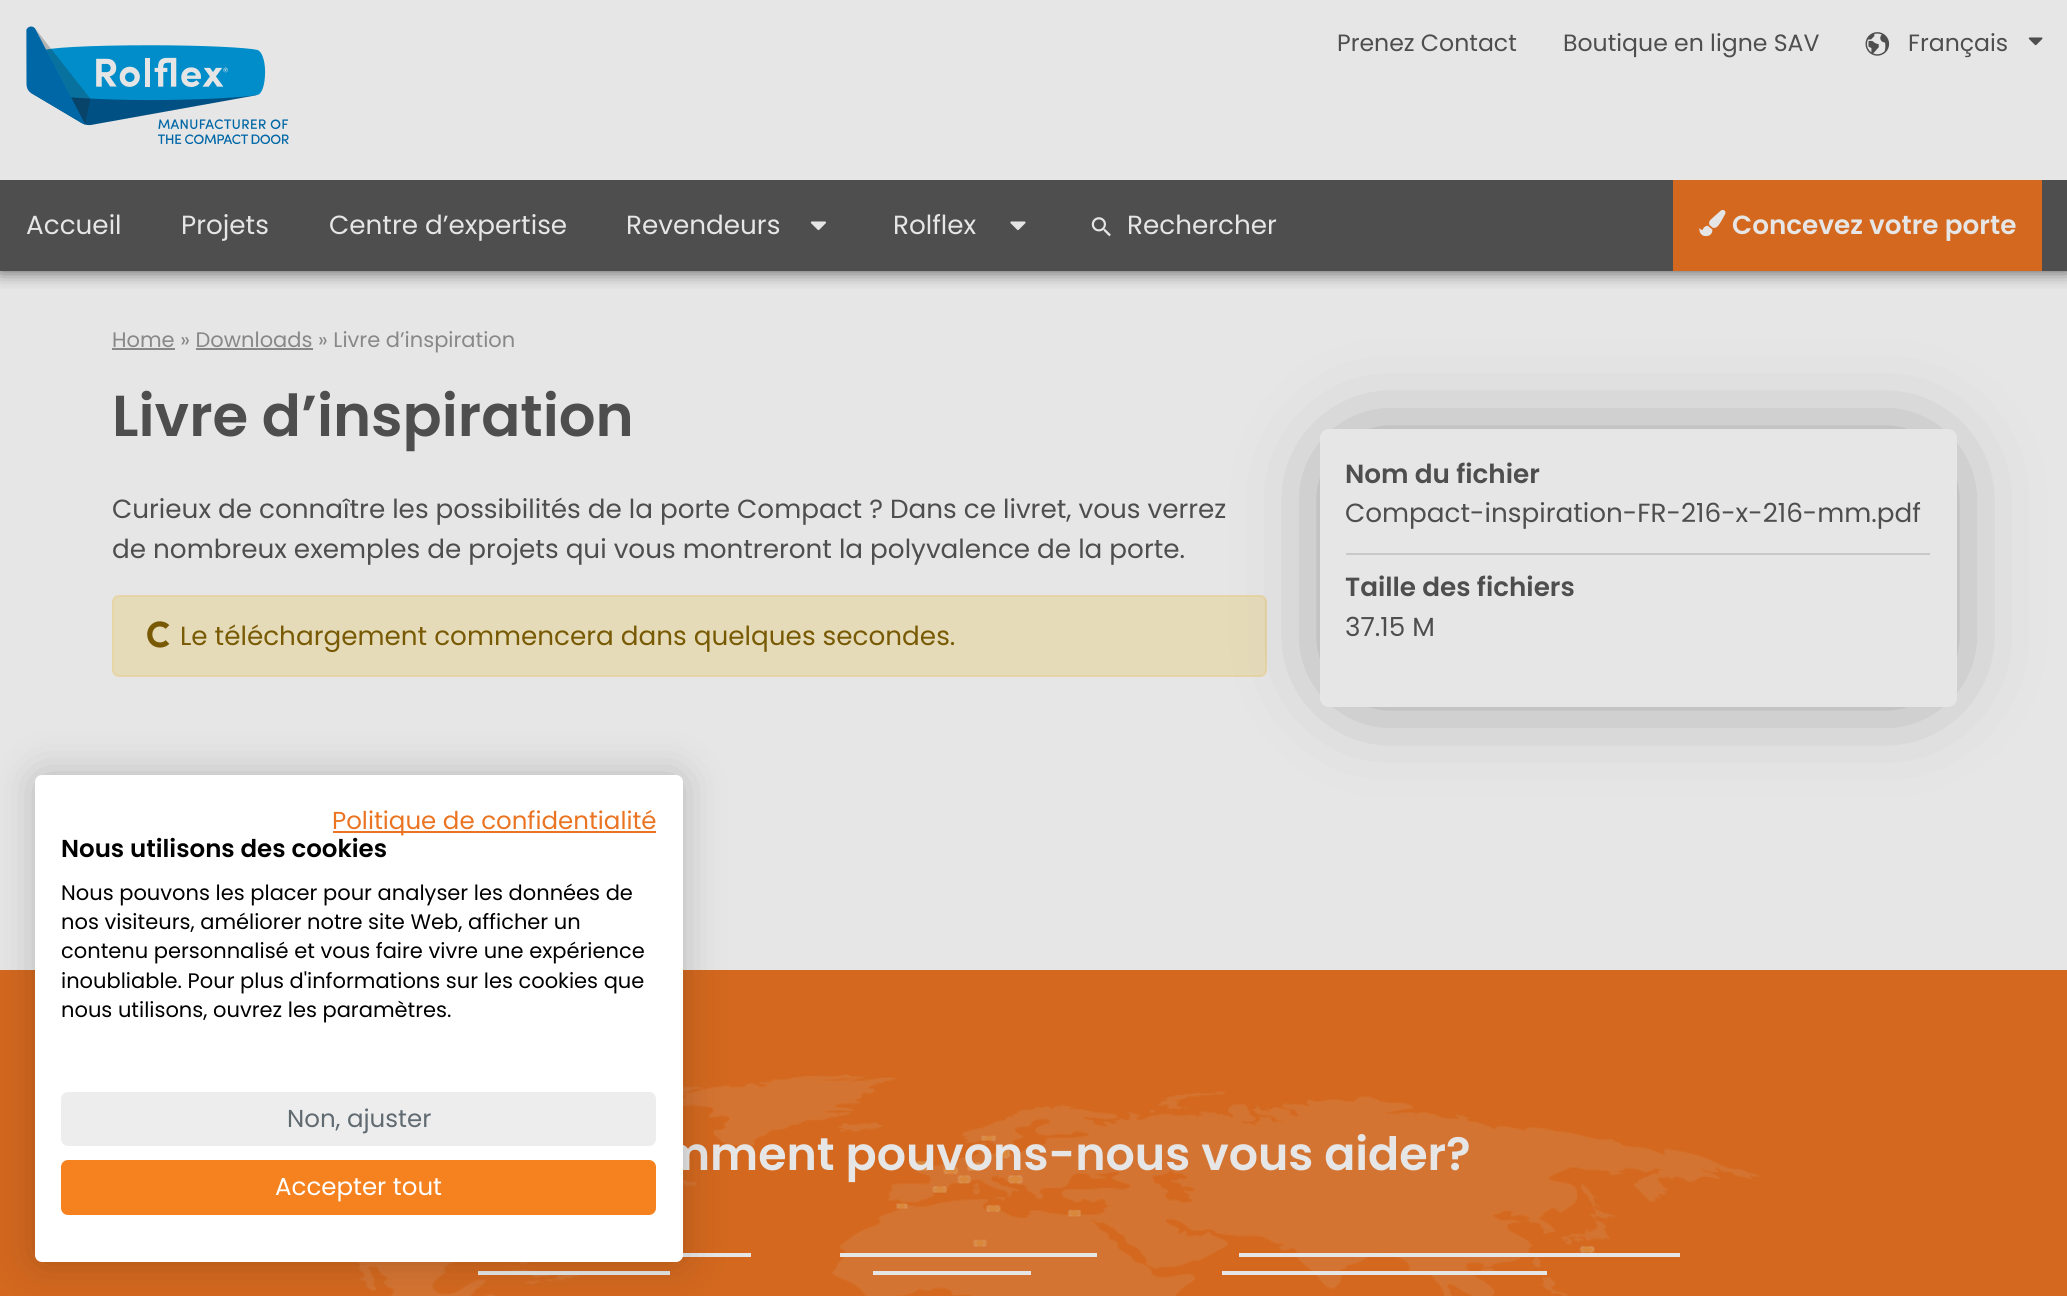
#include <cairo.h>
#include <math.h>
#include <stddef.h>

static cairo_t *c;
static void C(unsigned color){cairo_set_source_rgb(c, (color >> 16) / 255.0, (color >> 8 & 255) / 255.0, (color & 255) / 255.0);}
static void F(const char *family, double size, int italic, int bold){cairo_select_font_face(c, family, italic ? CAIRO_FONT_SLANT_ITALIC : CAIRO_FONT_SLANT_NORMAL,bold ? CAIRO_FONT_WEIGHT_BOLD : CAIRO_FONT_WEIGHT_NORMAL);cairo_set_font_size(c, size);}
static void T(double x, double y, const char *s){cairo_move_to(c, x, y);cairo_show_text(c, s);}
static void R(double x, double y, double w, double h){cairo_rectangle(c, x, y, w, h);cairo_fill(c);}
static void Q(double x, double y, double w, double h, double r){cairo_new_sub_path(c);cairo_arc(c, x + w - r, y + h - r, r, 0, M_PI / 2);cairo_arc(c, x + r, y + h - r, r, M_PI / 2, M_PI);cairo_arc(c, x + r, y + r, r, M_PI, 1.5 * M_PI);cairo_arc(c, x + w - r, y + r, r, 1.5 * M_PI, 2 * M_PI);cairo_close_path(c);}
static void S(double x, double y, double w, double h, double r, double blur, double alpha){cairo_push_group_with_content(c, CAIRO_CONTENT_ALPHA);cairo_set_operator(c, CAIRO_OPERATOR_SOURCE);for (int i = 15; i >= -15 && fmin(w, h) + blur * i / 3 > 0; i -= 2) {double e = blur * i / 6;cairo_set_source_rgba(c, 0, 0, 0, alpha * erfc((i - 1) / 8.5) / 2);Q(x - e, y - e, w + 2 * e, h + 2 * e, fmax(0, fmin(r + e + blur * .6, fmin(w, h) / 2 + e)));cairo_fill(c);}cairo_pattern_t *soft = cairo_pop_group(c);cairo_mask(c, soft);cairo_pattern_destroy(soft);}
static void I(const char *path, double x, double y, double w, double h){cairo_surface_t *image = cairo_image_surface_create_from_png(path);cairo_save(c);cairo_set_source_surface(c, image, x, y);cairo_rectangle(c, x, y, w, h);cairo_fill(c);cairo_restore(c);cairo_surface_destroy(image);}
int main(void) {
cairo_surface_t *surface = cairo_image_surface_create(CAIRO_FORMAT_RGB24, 2067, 1296);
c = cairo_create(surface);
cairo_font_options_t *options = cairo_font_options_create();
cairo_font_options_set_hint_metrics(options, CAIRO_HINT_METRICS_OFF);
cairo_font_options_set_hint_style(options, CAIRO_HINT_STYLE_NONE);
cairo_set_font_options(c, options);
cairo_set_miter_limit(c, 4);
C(0xe6e6e6);
cairo_paint(c);
cairo_save(c);
cairo_rectangle(c,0,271,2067,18);
cairo_clip(c);
C(0x4e4e4e);
S(0,0,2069,271,0,9,1);
cairo_restore(c);
I("1.png",26,26,263,118);
F("Poppins",23.6,0,0);
C(0x4e4e4e);
T(1337,51,"Prenez Contact");
T(1563,51,"Boutique en ligne SAV");
I("2.png",1865,32,25,24);
T(1908,51,"Français");
I("3.png",2028,37,15,9);
R(0,180,2067,91);
F("Poppins",26.25,0,0);
C(0xe6e6e6);
T(26,234,"Accueil");
T(181,234,"Projets");
T(329,234,"Centre d’expertise");
T(626,234,"Revendeurs");
I("4.png",810,221,16,10);
T(893,234,"Rolflex");
I("5.png",1010,221,16,10);
I("6.png",1091,217,20,20);
T(1127,234,"Rechercher");
C(0xd3681e);
R(1673,180,369,91);
I("7.png",1699,209,27,28);
F("Poppins SemiBold",26.25,0,0);
C(0xe6e6e6);
T(1732,234,"Concevez votre porte");
C(0x888888);
R(112,348,63,2);
F("Poppins",21,0,0);
T(112,347,"Home » Downloads » Livre d’inspiration");
R(196,348,117,2);
F("Poppins SemiBold",57.75,0,0);
C(0x4e4e4e);
T(112,436,"Livre d’inspiration");
F("Poppins",26.25,0,0);
T(112,518,"Curieux de connaître les possibilités de la porte Compact ? Dans ce livret, vous verrez");
T(112,558,"de nombreux exemples de projets qui vous montreront la polyvalence de la porte.");
C(0xe6dbb9);
Q(113,596,1153,80,6);
cairo_fill_preserve(c);
C(0xe6d6a7);
cairo_stroke(c);
cairo_new_path(c);
cairo_move_to(c,167.5,642);
cairo_curve_to(c,165.5,644,163,645,160,645);
cairo_curve_to(c,147.5,645,146,626.5,158,624);
cairo_curve_to(c,161.5,623.5,165,624.5,167.5,627);
C(0x785a04);
cairo_set_line_width(c,5.2);
cairo_stroke(c);
T(180,645,"Le téléchargement commencera dans quelques secondes.");
C(0x000000);
S(1360,469,556,198,0,52.5,.6);
C(0xe6e6e6);
Q(1320,429,637,278,9);
cairo_fill(c);
F("Poppins SemiBold",26.25,0,0);
C(0x4e4e4e);
T(1345,483,"Nom du fichier");
C(0xc9c9c9);
R(1346,553,584,2);
F("Poppins",26.25,0,0);
C(0x4e4e4e);
T(1345,522,"Compact-inspiration-FR-216-x-216-mm.pdf");
F("Poppins SemiBold",26.25,0,0);
T(1345,596,"Taille des fichiers");
F("Poppins",26.25,0,0);
T(1345,636,"37.15 M");
C(0xd3681e);
cairo_new_path(c);
cairo_move_to(c,0,970);
cairo_line_to(c,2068,970);
cairo_line_to(c,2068,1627);
cairo_curve_to(c,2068,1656,1605,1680,1034,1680);
cairo_curve_to(c,463,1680,0,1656,0,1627);
cairo_close_path(c);
cairo_fill(c);
I("8.png",358,1074,1402,222);
F("Poppins SemiBold",45.9,0,0);
C(0xe6e6e6);
T(662,1170,"mment pouvons-nous vous aider?");
R(682,1253,69,4);
R(478,1271,192,4);
R(840,1253,257,4);
R(873,1271,158,4);
R(1239,1253,441,4);
R(1222,1271,325,4);
C(0x000000);
S(35,775,648,487,7,21,.2);
C(0xffffff);
Q(35,775,648,487,7);
cairo_fill(c);
C(0xea7421);
R(333,831,323,2);
F("Poppins",24.5,0,0);
T(332,829,"Politique de confidentialité");
F("Poppins SemiBold",24.5,0,0);
C(0x000000);
T(61,857,"Nous utilisons des cookies");
F("Poppins",21,0,0);
T(61,900,"Nous pouvons les placer pour analyser les données de");
T(61,929,"nos visiteurs, améliorer notre site Web, afficher un");
T(61,958,"contenu personnalisé et vous faire vivre une expérience");
T(61,988,"inoubliable. Pour plus d'informations sur les cookies que");
T(61,1017,"nous utilisons, ouvrez les paramètres.");
C(0xededed);
Q(62,1093,593,52,6);
cairo_fill_preserve(c);
cairo_set_line_width(c,2);
cairo_stroke(c);
F("Poppins",24.5,0,0);
C(0x606a71);
T(287,1127,"Non, ajuster");
C(0xf5821f);
Q(62,1161,593,53,6);
cairo_fill_preserve(c);
cairo_stroke(c);
C(0xffffff);
T(275,1195,"Accepter tout");
cairo_surface_write_to_png(surface, "o.png");
cairo_font_options_destroy(options);
cairo_destroy(c);
cairo_surface_destroy(surface);
return 0;
}
